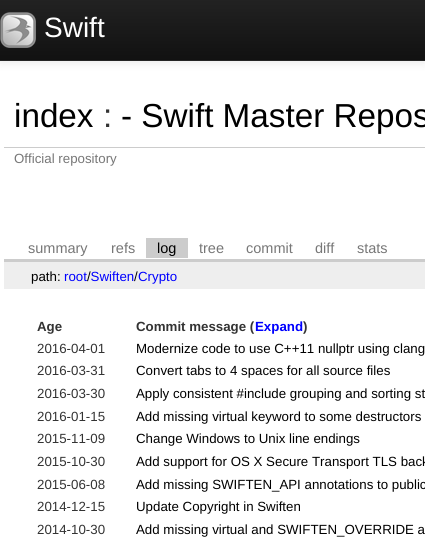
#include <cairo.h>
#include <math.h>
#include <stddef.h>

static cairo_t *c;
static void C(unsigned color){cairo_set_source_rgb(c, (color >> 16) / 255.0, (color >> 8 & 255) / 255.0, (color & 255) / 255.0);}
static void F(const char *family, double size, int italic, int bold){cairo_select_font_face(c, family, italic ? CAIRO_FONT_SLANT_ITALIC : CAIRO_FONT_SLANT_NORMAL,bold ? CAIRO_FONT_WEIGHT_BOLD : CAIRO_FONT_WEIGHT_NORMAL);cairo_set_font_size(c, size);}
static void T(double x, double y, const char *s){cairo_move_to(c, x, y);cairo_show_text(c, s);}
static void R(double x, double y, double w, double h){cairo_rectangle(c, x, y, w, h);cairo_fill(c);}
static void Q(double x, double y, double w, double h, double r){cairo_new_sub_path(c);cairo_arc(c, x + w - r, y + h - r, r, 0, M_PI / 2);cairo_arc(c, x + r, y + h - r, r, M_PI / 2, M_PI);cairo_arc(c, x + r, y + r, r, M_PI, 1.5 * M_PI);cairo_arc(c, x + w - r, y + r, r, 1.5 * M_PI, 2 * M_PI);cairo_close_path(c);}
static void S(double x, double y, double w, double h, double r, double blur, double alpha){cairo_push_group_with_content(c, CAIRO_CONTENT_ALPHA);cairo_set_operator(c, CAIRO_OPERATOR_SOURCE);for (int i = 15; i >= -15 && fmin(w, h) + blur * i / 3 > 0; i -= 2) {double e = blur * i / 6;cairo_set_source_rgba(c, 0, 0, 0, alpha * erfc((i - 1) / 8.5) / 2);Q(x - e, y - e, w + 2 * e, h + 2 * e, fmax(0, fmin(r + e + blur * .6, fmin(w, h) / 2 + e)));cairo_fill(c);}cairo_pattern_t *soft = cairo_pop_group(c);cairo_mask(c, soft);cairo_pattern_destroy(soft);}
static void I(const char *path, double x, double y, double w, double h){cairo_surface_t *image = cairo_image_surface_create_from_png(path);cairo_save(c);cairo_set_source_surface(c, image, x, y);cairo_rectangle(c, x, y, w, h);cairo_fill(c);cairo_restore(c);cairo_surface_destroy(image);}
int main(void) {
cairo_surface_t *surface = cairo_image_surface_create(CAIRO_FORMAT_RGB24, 425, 545);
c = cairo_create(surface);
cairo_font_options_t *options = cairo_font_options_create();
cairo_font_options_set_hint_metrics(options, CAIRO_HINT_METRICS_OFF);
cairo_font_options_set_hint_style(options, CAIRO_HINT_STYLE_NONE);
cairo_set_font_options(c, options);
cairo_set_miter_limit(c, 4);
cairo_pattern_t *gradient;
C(0xffffff);
cairo_paint(c);
C(0x000000);
S(0,1,425,61,0,5,.1);
gradient = cairo_pattern_create_linear(213,0,213,60);
cairo_pattern_add_color_stop_rgba(gradient,0,0.133,0.133,0.133,1);
cairo_pattern_add_color_stop_rgba(gradient,1,0.067,0.067,0.067,1);
cairo_set_source(c,gradient);
cairo_pattern_destroy(gradient);
R(0,0,425,60);
C(0x252525);
R(0,60,425,1);
I("1.png",0,12,36,36);
F("Liberation Sans",28,0,0);
C(0xffffff);
T(44,37,"Swift");
F("Liberation Sans",33.25,0,0);
C(0x000000);
T(14,127,"index");
C(0x333333);
T(103,127,":");
C(0x000000);
T(121,127,"- Swift Master Repos");
C(0xcccccc);
R(4,147,421,1);
F("Liberation Sans",13.3,0,0);
C(0x777777);
T(14,163,"Official repository");
C(0xcccccc);
R(4,259,421,3);
F("Liberation Sans",14.5,0,0);
C(0x777777);
T(28,253,"summary");
T(111,253,"refs");
C(0xcccccc);
R(146,238,42,20);
C(0x000000);
T(157,253,"log");
C(0x777777);
T(199,253,"tree");
T(246,253,"commit");
T(315,253,"diff");
T(357,253,"stats");
C(0xeeeeee);
R(4,262,421,27);
F("Liberation Sans",13.3,0,0);
C(0x000000);
T(31,281,"path:");
C(0x0000ff);
T(64,281,"root Swiften");
C(0x000000);
T(87,281,"/");
T(134,281,"/");
C(0x0000ff);
T(138,281,"Crypto");
F("Liberation Sans",13.3,0,1);
C(0x333333);
T(37,331,"Age");
T(136,331,"Commit message (");
C(0x0000ff);
T(255,331,"Expand");
C(0x333333);
T(303,331,")");
F("Liberation Sans",13.3,0,0);
T(37,353,"2016-04-01");
C(0x000000);
T(136,353,"Modernize code to use C++11 nullptr using clang");
C(0x333333);
T(37,375,"2016-03-31");
C(0x000000);
T(136,375,"Convert tabs to 4 spaces for all source files");
C(0x333333);
T(37,398,"2016-03-30");
C(0x000000);
T(136,398,"Apply consistent #include grouping and sorting st");
C(0x333333);
T(37,421,"2016-01-15");
C(0x000000);
T(136,421,"Add missing virtual keyword to some destructors");
C(0x333333);
T(37,443,"2015-11-09");
C(0x000000);
T(136,443,"Change Windows to Unix line endings");
C(0x333333);
T(37,466,"2015-10-30");
C(0x000000);
T(136,466,"Add support for OS X Secure Transport TLS back");
C(0x333333);
T(37,489,"2015-06-08");
C(0x000000);
T(136,489,"Add missing SWIFTEN_API annotations to public");
C(0x333333);
T(37,511,"2014-12-15");
C(0x000000);
T(136,511,"Update Copyright in Swiften");
C(0x333333);
T(37,534,"2014-10-30");
C(0x000000);
T(136,534,"Add missing virtual and SWIFTEN_OVERRIDE a");
cairo_surface_write_to_png(surface, "o.png");
cairo_font_options_destroy(options);
cairo_destroy(c);
cairo_surface_destroy(surface);
return 0;
}
